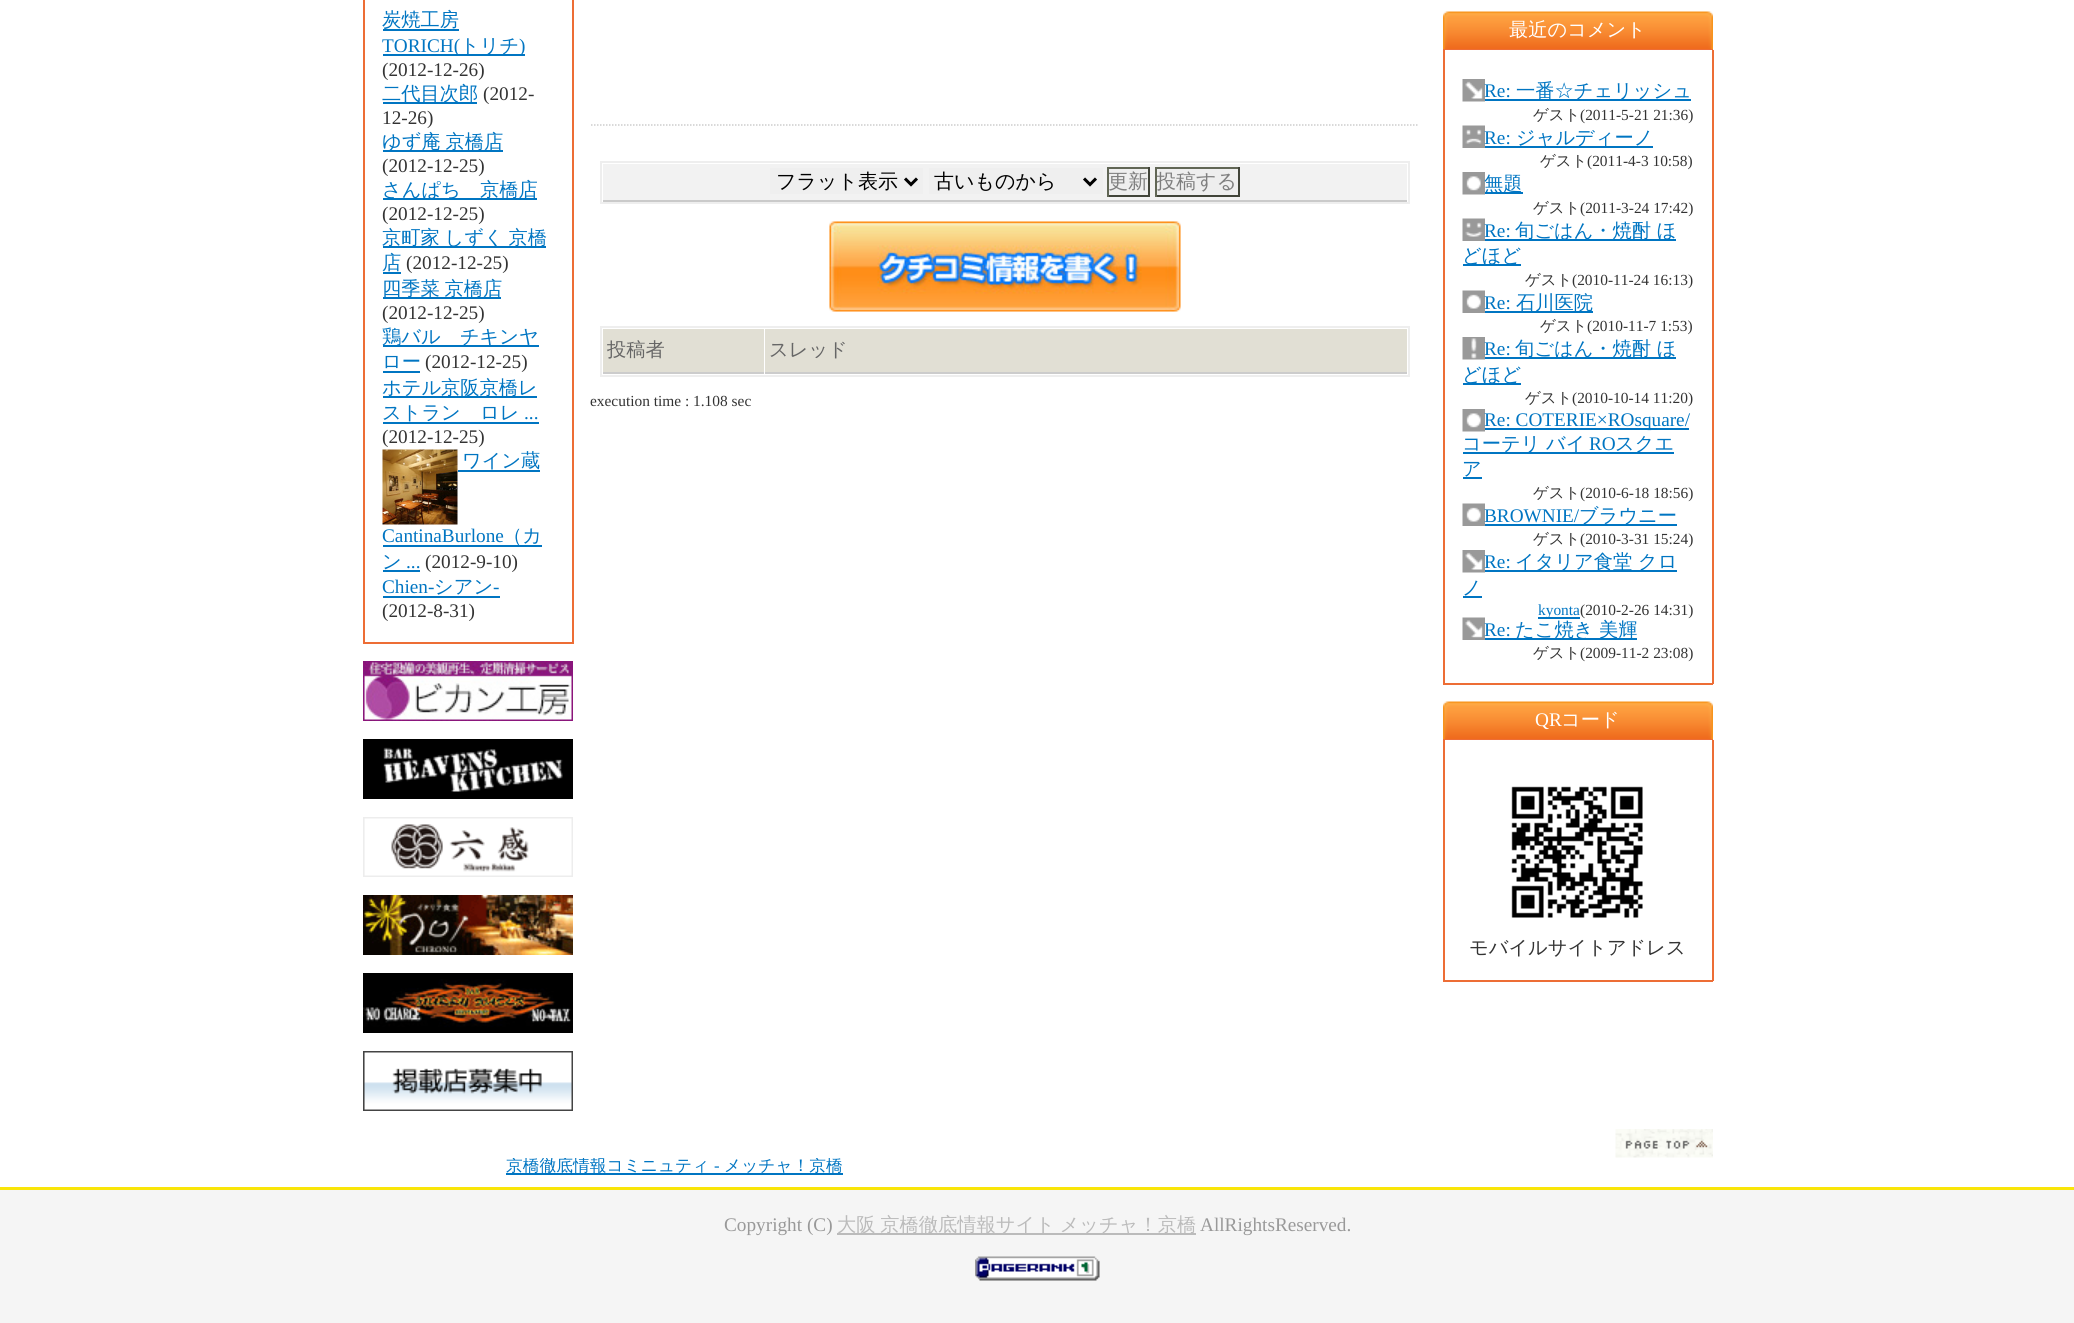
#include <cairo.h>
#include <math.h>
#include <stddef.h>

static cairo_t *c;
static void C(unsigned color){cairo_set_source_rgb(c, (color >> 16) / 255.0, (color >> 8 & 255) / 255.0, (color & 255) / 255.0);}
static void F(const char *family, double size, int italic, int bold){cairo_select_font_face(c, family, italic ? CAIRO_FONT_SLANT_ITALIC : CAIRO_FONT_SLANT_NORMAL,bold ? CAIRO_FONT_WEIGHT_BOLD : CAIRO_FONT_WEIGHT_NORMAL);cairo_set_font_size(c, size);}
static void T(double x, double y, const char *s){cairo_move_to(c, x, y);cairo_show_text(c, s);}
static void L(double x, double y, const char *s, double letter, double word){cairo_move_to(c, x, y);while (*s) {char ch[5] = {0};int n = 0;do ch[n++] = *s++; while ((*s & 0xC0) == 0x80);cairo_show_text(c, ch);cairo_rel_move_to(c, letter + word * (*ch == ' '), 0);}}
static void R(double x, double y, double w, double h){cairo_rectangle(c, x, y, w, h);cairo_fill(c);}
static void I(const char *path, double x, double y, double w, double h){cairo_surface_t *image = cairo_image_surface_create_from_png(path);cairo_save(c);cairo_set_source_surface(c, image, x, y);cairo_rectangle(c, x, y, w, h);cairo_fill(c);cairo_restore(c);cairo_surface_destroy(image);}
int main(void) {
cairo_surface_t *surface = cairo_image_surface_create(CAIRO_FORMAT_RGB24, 2074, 1323);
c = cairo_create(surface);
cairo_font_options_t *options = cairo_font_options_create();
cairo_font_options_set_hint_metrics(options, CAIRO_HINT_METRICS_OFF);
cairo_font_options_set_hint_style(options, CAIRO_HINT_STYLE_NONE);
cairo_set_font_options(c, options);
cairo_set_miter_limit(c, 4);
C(0xffffff);
cairo_paint(c);
C(0xed6d35);
R(572,0,2,644);
R(363,642,210,2);
R(363,0,2,644);
C(0x0075c2);
R(383,29,76,2);
F("WenQuanYi Zen Hei Medium",19.25,0,0);
T(382,26,"炭焼工房");
R(383,54,142,2);
F("Liberation Serif",19.25,0,0);
T(382,52,"TORICH(");
F("WenQuanYi Zen Hei Medium",19.25,0,0);
T(460,52,"トリチ");
F("Liberation Serif",19.25,0,0);
T(519,52,")");
C(0x333333);
T(382,76,"(2012-12-26)");
C(0x0075c2);
R(383,102,94,2);
F("WenQuanYi Zen Hei Medium",19.25,0,0);
T(382,100,"二代目次郎");
F("Liberation Serif",19.25,0,0);
C(0x333333);
T(483,100,"(2012-");
T(382,124,"12-26)");
C(0x0075c2);
R(383,150,120,2);
F("WenQuanYi Zen Hei Medium",19.25,0,0);
L(382,148,"ゆず庵 京橋店",0,-1);
F("Liberation Serif",19.25,0,0);
C(0x333333);
T(382,172,"(2012-12-25)");
C(0x0075c2);
R(383,198,154,2);
F("WenQuanYi Zen Hei Medium",19.25,0,0);
T(382,196,"さんぱち　京橋店");
F("Liberation Serif",19.25,0,0);
C(0x333333);
T(382,220,"(2012-12-25)");
C(0x0075c2);
R(383,246,163,2);
F("WenQuanYi Zen Hei Medium",19.25,0,0);
L(382,244,"京町家 しずく 京橋",0,-1);
T(382,269,"店");
R(383,272,18,2);
F("Liberation Serif",19.25,0,0);
C(0x333333);
T(406,269,"(2012-12-25)");
C(0x0075c2);
R(383,297,118,2);
F("WenQuanYi Zen Hei Medium",19.25,0,0);
L(382,295,"四季菜 京橋店",0,-1);
F("Liberation Serif",19.25,0,0);
C(0x333333);
T(382,319,"(2012-12-25)");
C(0x0075c2);
R(383,345,156,2);
F("WenQuanYi Zen Hei Medium",19.25,0,0);
T(382,343,"鶏バル　チキンヤ");
T(382,368,"ロー");
R(383,371,37,2);
F("Liberation Serif",19.25,0,0);
C(0x333333);
T(425,368,"(2012-12-25)");
C(0x0075c2);
R(383,396,154,2);
F("WenQuanYi Zen Hei Medium",19.25,0,0);
T(382,394,"ホテル京阪京橋レ");
T(382,419,"ストラン　ロレ");
F("Liberation Serif",19.25,0,0);
T(524,419,"...");
R(383,422,156,2);
C(0x333333);
T(382,443,"(2012-12-25)");
I("1.png",382,449,76,76);
F("WenQuanYi Zen Hei Medium",19.25,0,0);
C(0x0075c2);
T(462,467,"ワイン蔵");
R(458,470,82,2);
F("Liberation Serif",19.25,0,0);
T(382,542,"CantinaBurlone");
R(383,545,159,2);
F("WenQuanYi Zen Hei Medium",19.25,0,0);
T(503,542,"（カ");
T(382,568,"ン");
F("Liberation Serif",19.25,0,0);
T(406,568,"...");
R(383,570,37,2);
C(0x333333);
T(425,568,"(2012-9-10)");
C(0x0075c2);
T(382,593,"Chien-");
F("WenQuanYi Zen Hei Medium",19.25,0,0);
T(434,593,"シアン");
F("Liberation Serif",19.25,0,0);
T(493,593,"-");
R(383,596,117,2);
C(0x333333);
T(382,617,"(2012-8-31)");
I("2.png",363,661,210,60);
I("3.png",363,739,210,60);
I("4.png",363,817,210,60);
I("5.png",363,895,210,60);
I("6.png",363,973,210,60);
I("7.png",363,1051,210,60);
cairo_new_path(c);
cairo_move_to(c,591,125);
cairo_line_to(c,1419,125);
C(0xcccccc);
cairo_set_line_width(c,1.5);
cairo_set_dash(c,(double[]){1.5,1.5},2,0);
cairo_stroke(c);
cairo_rectangle(c,601,162,808,41);
C(0xeeeeee);
cairo_set_line_width(c,2);
cairo_set_dash(c,NULL,0,0);
cairo_stroke(c);
C(0xf2f2f2);
R(603,164,804,36);
C(0xcacaca);
R(603,200,804,2);
C(0xefefef);
R(770,168,153,26);
cairo_new_path(c);
cairo_move_to(c,905,178.5);
cairo_line_to(c,911,184.5);
cairo_line_to(c,917,178.5);
C(0x000000);
cairo_set_line_width(c,3);
cairo_stroke(c);
F("WenQuanYi Zen Hei Medium",20,0,0);
T(776,188,"フラット表示");
C(0xefefef);
R(929,168,174,26);
cairo_new_path(c);
cairo_move_to(c,1084,178.5);
cairo_line_to(c,1090,184.5);
cairo_line_to(c,1096,178.5);
C(0x000000);
cairo_stroke(c);
T(934,188,"古いものから");
C(0xeeeeee);
R(1109,169,39,26);
C(0x616655);
R(1107,167,42,2);
C(0x414439);
R(1148,167,2,30);
R(1107,195,42,2);
C(0x616655);
R(1107,167,2,30);
C(0x7f7f7f);
T(1108,188,"更新");
C(0xeeeeee);
R(1157,169,81,26);
C(0x616655);
R(1155,167,84,2);
C(0x414439);
R(1238,167,2,30);
R(1155,195,84,2);
C(0x616655);
R(1155,167,2,30);
cairo_save(c);
cairo_rectangle(c,1157,168,81,27);
cairo_clip(c);
C(0x7f7f7f);
T(1156,188,"投稿する");
cairo_restore(c);
I("8.png",829,221,352,91);
cairo_rectangle(c,601,327,808,49);
C(0xeeeeee);
cairo_set_line_width(c,2);
cairo_stroke(c);
C(0xe1dfd4);
R(603,329,161,43);
C(0xcccccc);
R(603,372,161,2);
F("WenQuanYi Zen Hei Medium",19.25,0,0);
C(0x666666);
T(607,356,"投稿者");
C(0xe1dfd4);
R(765,329,642,43);
C(0xcccccc);
R(765,372,642,2);
C(0x666666);
T(769,356,"スレッド");
F("Liberation Serif",15.4,0,0);
C(0x333333);
T(590,406,"execution time : 1.108 sec");
C(0xed6d35);
R(1443,49,270,1);
I("9.png",1443,11,270,38);
F("WenQuanYi Zen Hei Medium",19.25,0,0);
C(0xffffff);
T(1509,36,"最近のコメント");
C(0xed6d35);
R(1712,50,2,634);
R(1443,683,270,2);
R(1443,50,2,634);
I("10.png",1462,79,23,23);
F("Liberation Serif",19.25,0,0);
C(0x0075c2);
T(1484,97,"Re:");
R(1485,99,206,2);
F("WenQuanYi Zen Hei Medium",19.25,0,0);
T(1516,97,"一番☆チェリッシュ");
F("WenQuanYi Zen Hei Medium",15.4,0,0);
C(0x333333);
T(1533,120,"ゲスト");
F("Liberation Serif",15.4,0,0);
T(1580,120,"(2011-5-21 21:36)");
I("11.png",1462,125,23,23);
F("Liberation Serif",19.25,0,0);
C(0x0075c2);
T(1484,144,"Re:");
R(1485,146,168,2);
F("WenQuanYi Zen Hei Medium",19.25,0,0);
T(1516,144,"ジャルディーノ");
F("WenQuanYi Zen Hei Medium",15.4,0,0);
C(0x333333);
T(1540,166,"ゲスト");
F("Liberation Serif",15.4,0,0);
T(1587,166,"(2011-4-3 10:58)");
I("12.png",1462,172,23,23);
C(0x0075c2);
R(1485,192,38,2);
F("WenQuanYi Zen Hei Medium",19.25,0,0);
T(1484,190,"無題");
F("WenQuanYi Zen Hei Medium",15.4,0,0);
C(0x333333);
T(1533,213,"ゲスト");
F("Liberation Serif",15.4,0,0);
T(1580,213,"(2011-3-24 17:42)");
I("13.png",1462,218,23,23);
F("Liberation Serif",19.25,0,0);
C(0x0075c2);
T(1484,237,"Re:");
R(1485,239,191,2);
F("WenQuanYi Zen Hei Medium",19.25,0,0);
T(1515,237,"旬ごはん・焼酎 ほ");
R(1463,264,58,2);
T(1462,262,"どほど");
F("WenQuanYi Zen Hei Medium",15.4,0,0);
C(0x333333);
T(1525,285,"ゲスト");
F("Liberation Serif",15.4,0,0);
T(1572,285,"(2010-11-24 16:13)");
I("14.png",1462,290,23,23);
F("Liberation Serif",19.25,0,0);
C(0x0075c2);
T(1484,309,"Re:");
R(1485,311,108,2);
F("WenQuanYi Zen Hei Medium",19.25,0,0);
T(1516,309,"石川医院");
F("WenQuanYi Zen Hei Medium",15.4,0,0);
C(0x333333);
T(1540,331,"ゲスト");
F("Liberation Serif",15.4,0,0);
T(1587,331,"(2010-11-7 1:53)");
I("15.png",1462,337,23,23);
F("Liberation Serif",19.25,0,0);
C(0x0075c2);
T(1484,355,"Re:");
R(1485,357,191,2);
F("WenQuanYi Zen Hei Medium",19.25,0,0);
T(1515,355,"旬ごはん・焼酎 ほ");
R(1463,383,58,2);
T(1462,381,"どほど");
F("WenQuanYi Zen Hei Medium",15.4,0,0);
C(0x333333);
T(1525,403,"ゲスト");
F("Liberation Serif",15.4,0,0);
T(1572,403,"(2010-10-14 11:20)");
I("12.png",1462,409,23,23);
C(0x0075c2);
R(1485,428,204,2);
F("Liberation Serif",19.25,0,0);
T(1484,426,"Re: COTERIE×ROsquare/");
R(1463,452,211,2);
F("WenQuanYi Zen Hei Medium",19.25,0,0);
T(1462,450,"コーテリ バイ");
F("Liberation Serif",19.25,0,0);
T(1589,450,"RO");
F("WenQuanYi Zen Hei Medium",19.25,0,0);
T(1615,450,"スクエ");
T(1462,475,"ア");
R(1463,477,19,2);
F("WenQuanYi Zen Hei Medium",15.4,0,0);
C(0x333333);
T(1533,498,"ゲスト");
F("Liberation Serif",15.4,0,0);
T(1580,498,"(2010-6-18 18:56)");
I("14.png",1462,503,23,23);
F("Liberation Serif",19.25,0,0);
C(0x0075c2);
T(1484,522,"BROWNIE/");
R(1485,524,192,2);
F("WenQuanYi Zen Hei Medium",19.25,0,0);
T(1579,522,"ブラウニー");
F("WenQuanYi Zen Hei Medium",15.4,0,0);
C(0x333333);
T(1533,544,"ゲスト");
F("Liberation Serif",15.4,0,0);
T(1580,544,"(2010-3-31 15:24)");
I("10.png",1462,550,23,23);
F("Liberation Serif",19.25,0,0);
C(0x0075c2);
T(1484,568,"Re:");
R(1485,570,192,2);
F("WenQuanYi Zen Hei Medium",19.25,0,0);
T(1515,568,"イタリア食堂 クロ");
T(1462,594,"ノ");
R(1463,596,19,2);
R(1538,617,42,2);
F("Liberation Serif",15.4,0,0);
T(1538,615,"kyonta");
C(0x333333);
T(1580,615,"(2010-2-26 14:31)");
I("16.png",1462,617,23,23);
F("Liberation Serif",19.25,0,0);
C(0x0075c2);
T(1484,636,"Re:");
R(1485,638,152,2);
F("WenQuanYi Zen Hei Medium",19.25,0,0);
T(1515,636,"たこ焼き 美輝");
F("WenQuanYi Zen Hei Medium",15.4,0,0);
C(0x333333);
T(1533,658,"ゲスト");
F("Liberation Serif",15.4,0,0);
T(1580,658,"(2009-11-2 23:08)");
C(0xed6d35);
R(1443,739,270,1);
I("9.png",1443,701,270,38);
F("Liberation Serif",19.25,0,0);
C(0xffffff);
T(1535,726,"QR");
F("WenQuanYi Zen Hei Medium",19.25,0,0);
T(1561,726,"コード");
C(0xed6d35);
R(1712,740,2,241);
R(1443,980,270,2);
R(1443,740,2,241);
I("17.png",1511,786,132,132);
C(0x333333);
T(1469,954,"モバイルサイトアドレス");
I("18.png",1615,1129,98,29);
C(0x0075c2);
R(506,1173,337,2);
cairo_save(c);
cairo_rectangle(c,363,1158,1350,21);
cairo_clip(c);
F("WenQuanYi Zen Hei Medium",16.75,0,0);
T(506,1171,"京橋徹底情報コミニュティ");
cairo_restore(c);
F("Liberation Serif",16.75,0,0);
T(714,1171,"-");
cairo_save(c);
cairo_rectangle(c,363,1158,1350,21);
cairo_clip(c);
F("WenQuanYi Zen Hei Medium",16.75,0,0);
T(724,1171,"メッチャ！京橋");
cairo_restore(c);
C(0xf5f5f5);
R(0,1190,2074,133);
C(0xf9e508);
R(0,1187,2074,3);
F("Liberation Serif",19.25,0,0);
C(0x999999);
T(724,1231,"Copyright (C)");
C(0xbbbbbb);
R(837,1233,359,2);
F("WenQuanYi Zen Hei Medium",19.25,0,0);
L(837,1231,"大阪 京橋徹底情報サイト メッチャ！京橋",0,-1);
F("Liberation Serif",19.25,0,0);
C(0x999999);
T(1200,1231,"AllRightsReserved.");
I("19.png",975,1256,125,25);
cairo_surface_write_to_png(surface, "o.png");
cairo_font_options_destroy(options);
cairo_destroy(c);
cairo_surface_destroy(surface);
return 0;
}
